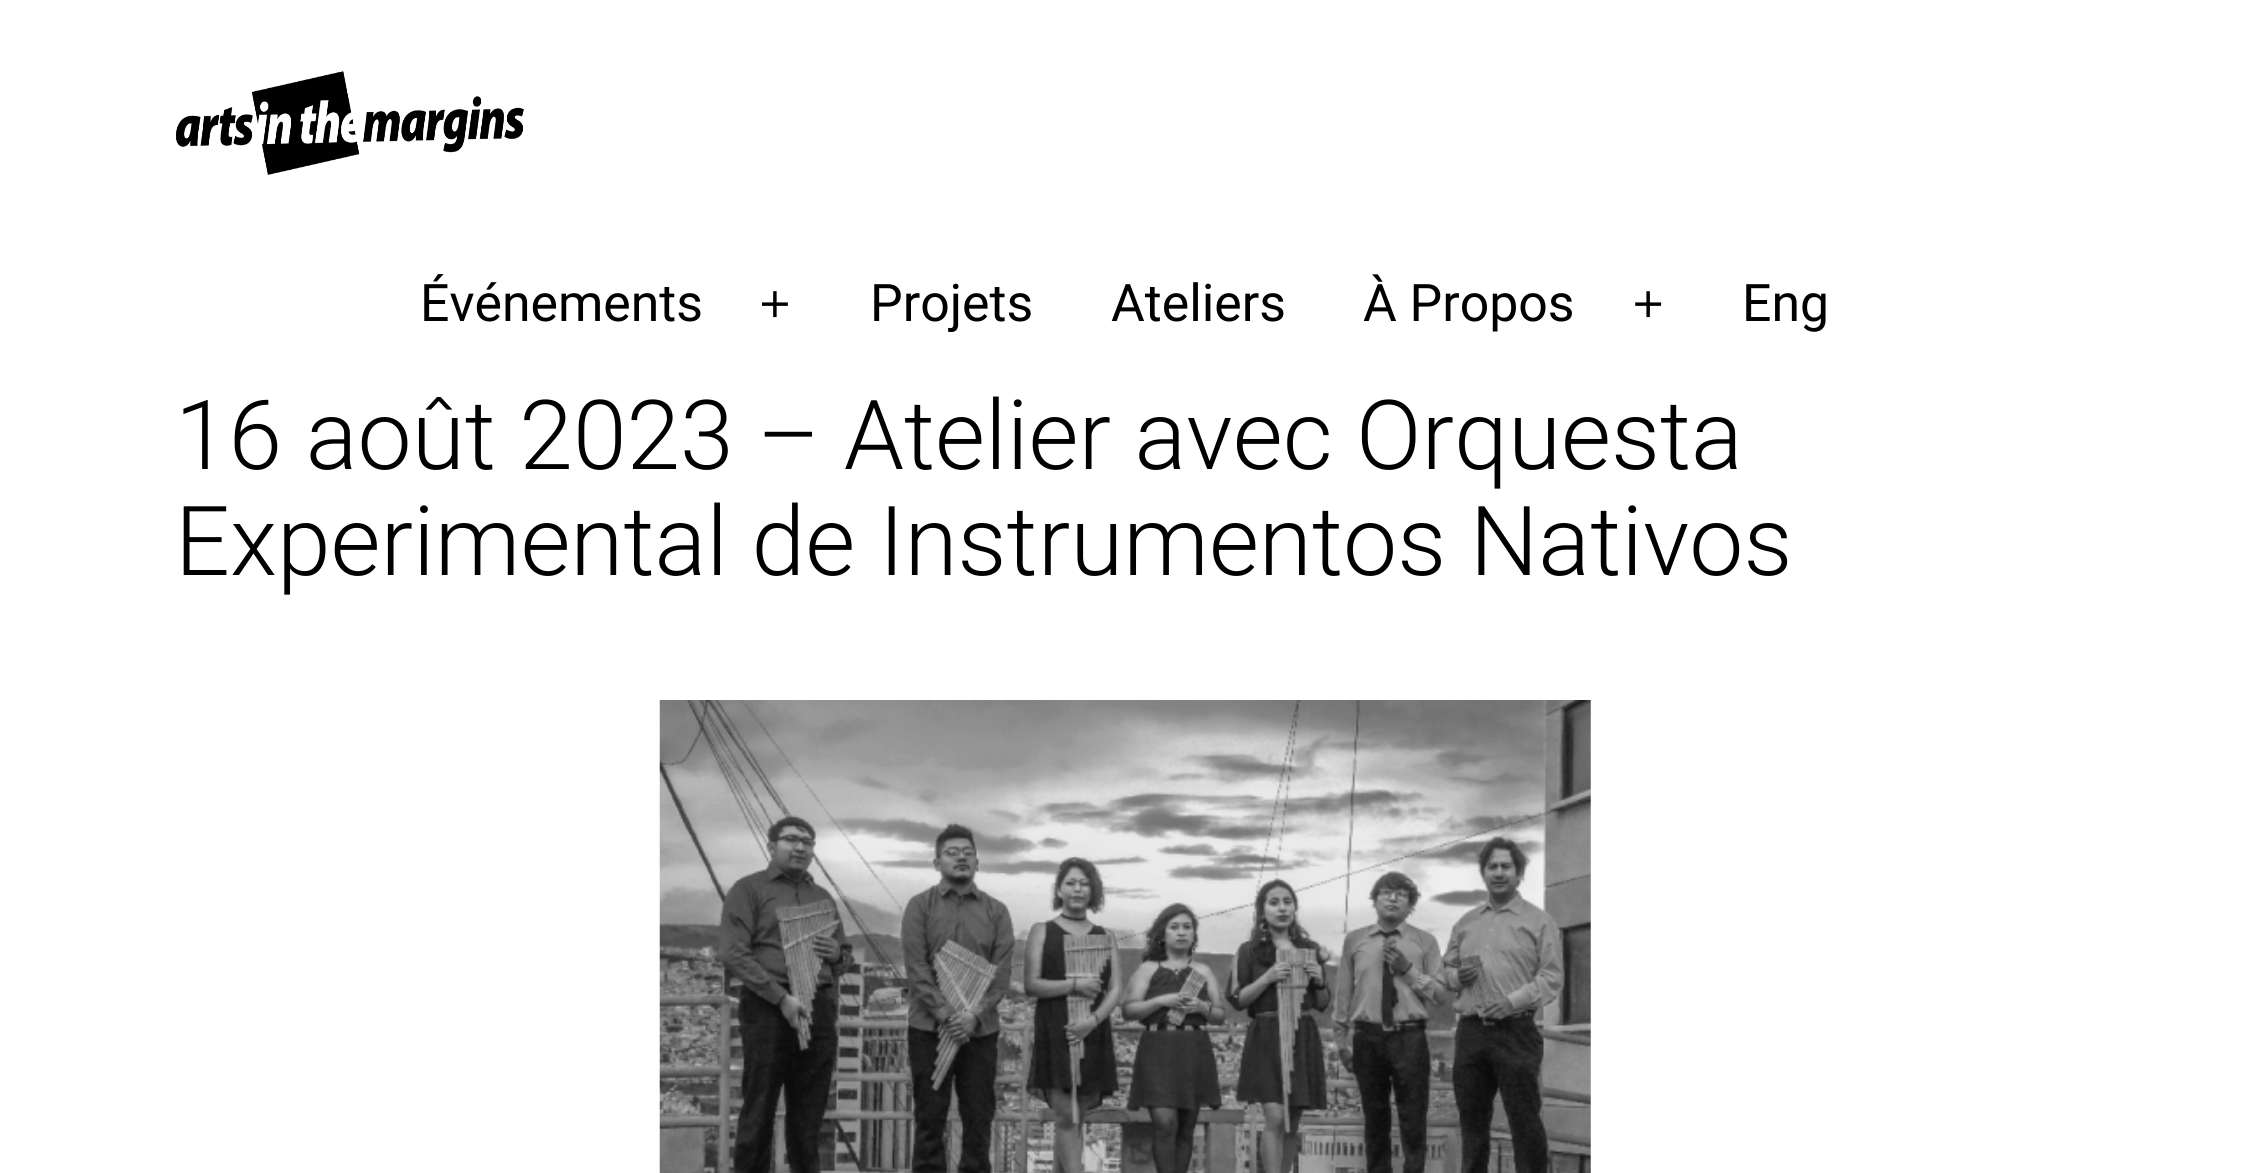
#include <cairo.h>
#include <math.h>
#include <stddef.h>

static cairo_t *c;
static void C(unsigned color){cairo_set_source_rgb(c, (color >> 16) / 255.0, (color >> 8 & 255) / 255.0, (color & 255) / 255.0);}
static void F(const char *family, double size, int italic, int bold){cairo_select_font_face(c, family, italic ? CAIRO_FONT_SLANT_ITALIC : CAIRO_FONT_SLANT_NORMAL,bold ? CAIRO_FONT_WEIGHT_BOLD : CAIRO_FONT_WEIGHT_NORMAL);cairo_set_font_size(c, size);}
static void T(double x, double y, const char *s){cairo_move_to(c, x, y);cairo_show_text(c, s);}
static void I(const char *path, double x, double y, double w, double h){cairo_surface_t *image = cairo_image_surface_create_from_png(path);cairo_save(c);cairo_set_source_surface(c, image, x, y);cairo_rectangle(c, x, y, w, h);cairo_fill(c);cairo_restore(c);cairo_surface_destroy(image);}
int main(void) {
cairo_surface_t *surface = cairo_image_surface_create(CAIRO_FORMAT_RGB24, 2248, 1173);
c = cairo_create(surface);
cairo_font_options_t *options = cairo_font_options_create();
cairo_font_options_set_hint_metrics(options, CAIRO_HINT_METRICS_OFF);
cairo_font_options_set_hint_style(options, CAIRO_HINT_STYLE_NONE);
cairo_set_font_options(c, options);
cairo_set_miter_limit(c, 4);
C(0xffffff);
cairo_paint(c);
I("1.png",175,71,349,104);
F("Roboto",51.75,0,0);
C(0x000000);
T(420,321,"Événements");
I("2.png",761,291,27,27);
T(870,321,"Projets");
T(1111,321,"Ateliers");
T(1363,321,"À Propos");
I("3.png",1635,291,27,27);
T(1742,321,"Eng");
F("Roboto Light",96.6,0,0);
T(175,469,"16 août 2023 – Atelier avec Orquesta");
T(175,575,"Experimental de Instrumentos Nativos");
I("4.png",659,700,932,473);
cairo_surface_write_to_png(surface, "o.png");
cairo_font_options_destroy(options);
cairo_destroy(c);
cairo_surface_destroy(surface);
return 0;
}
